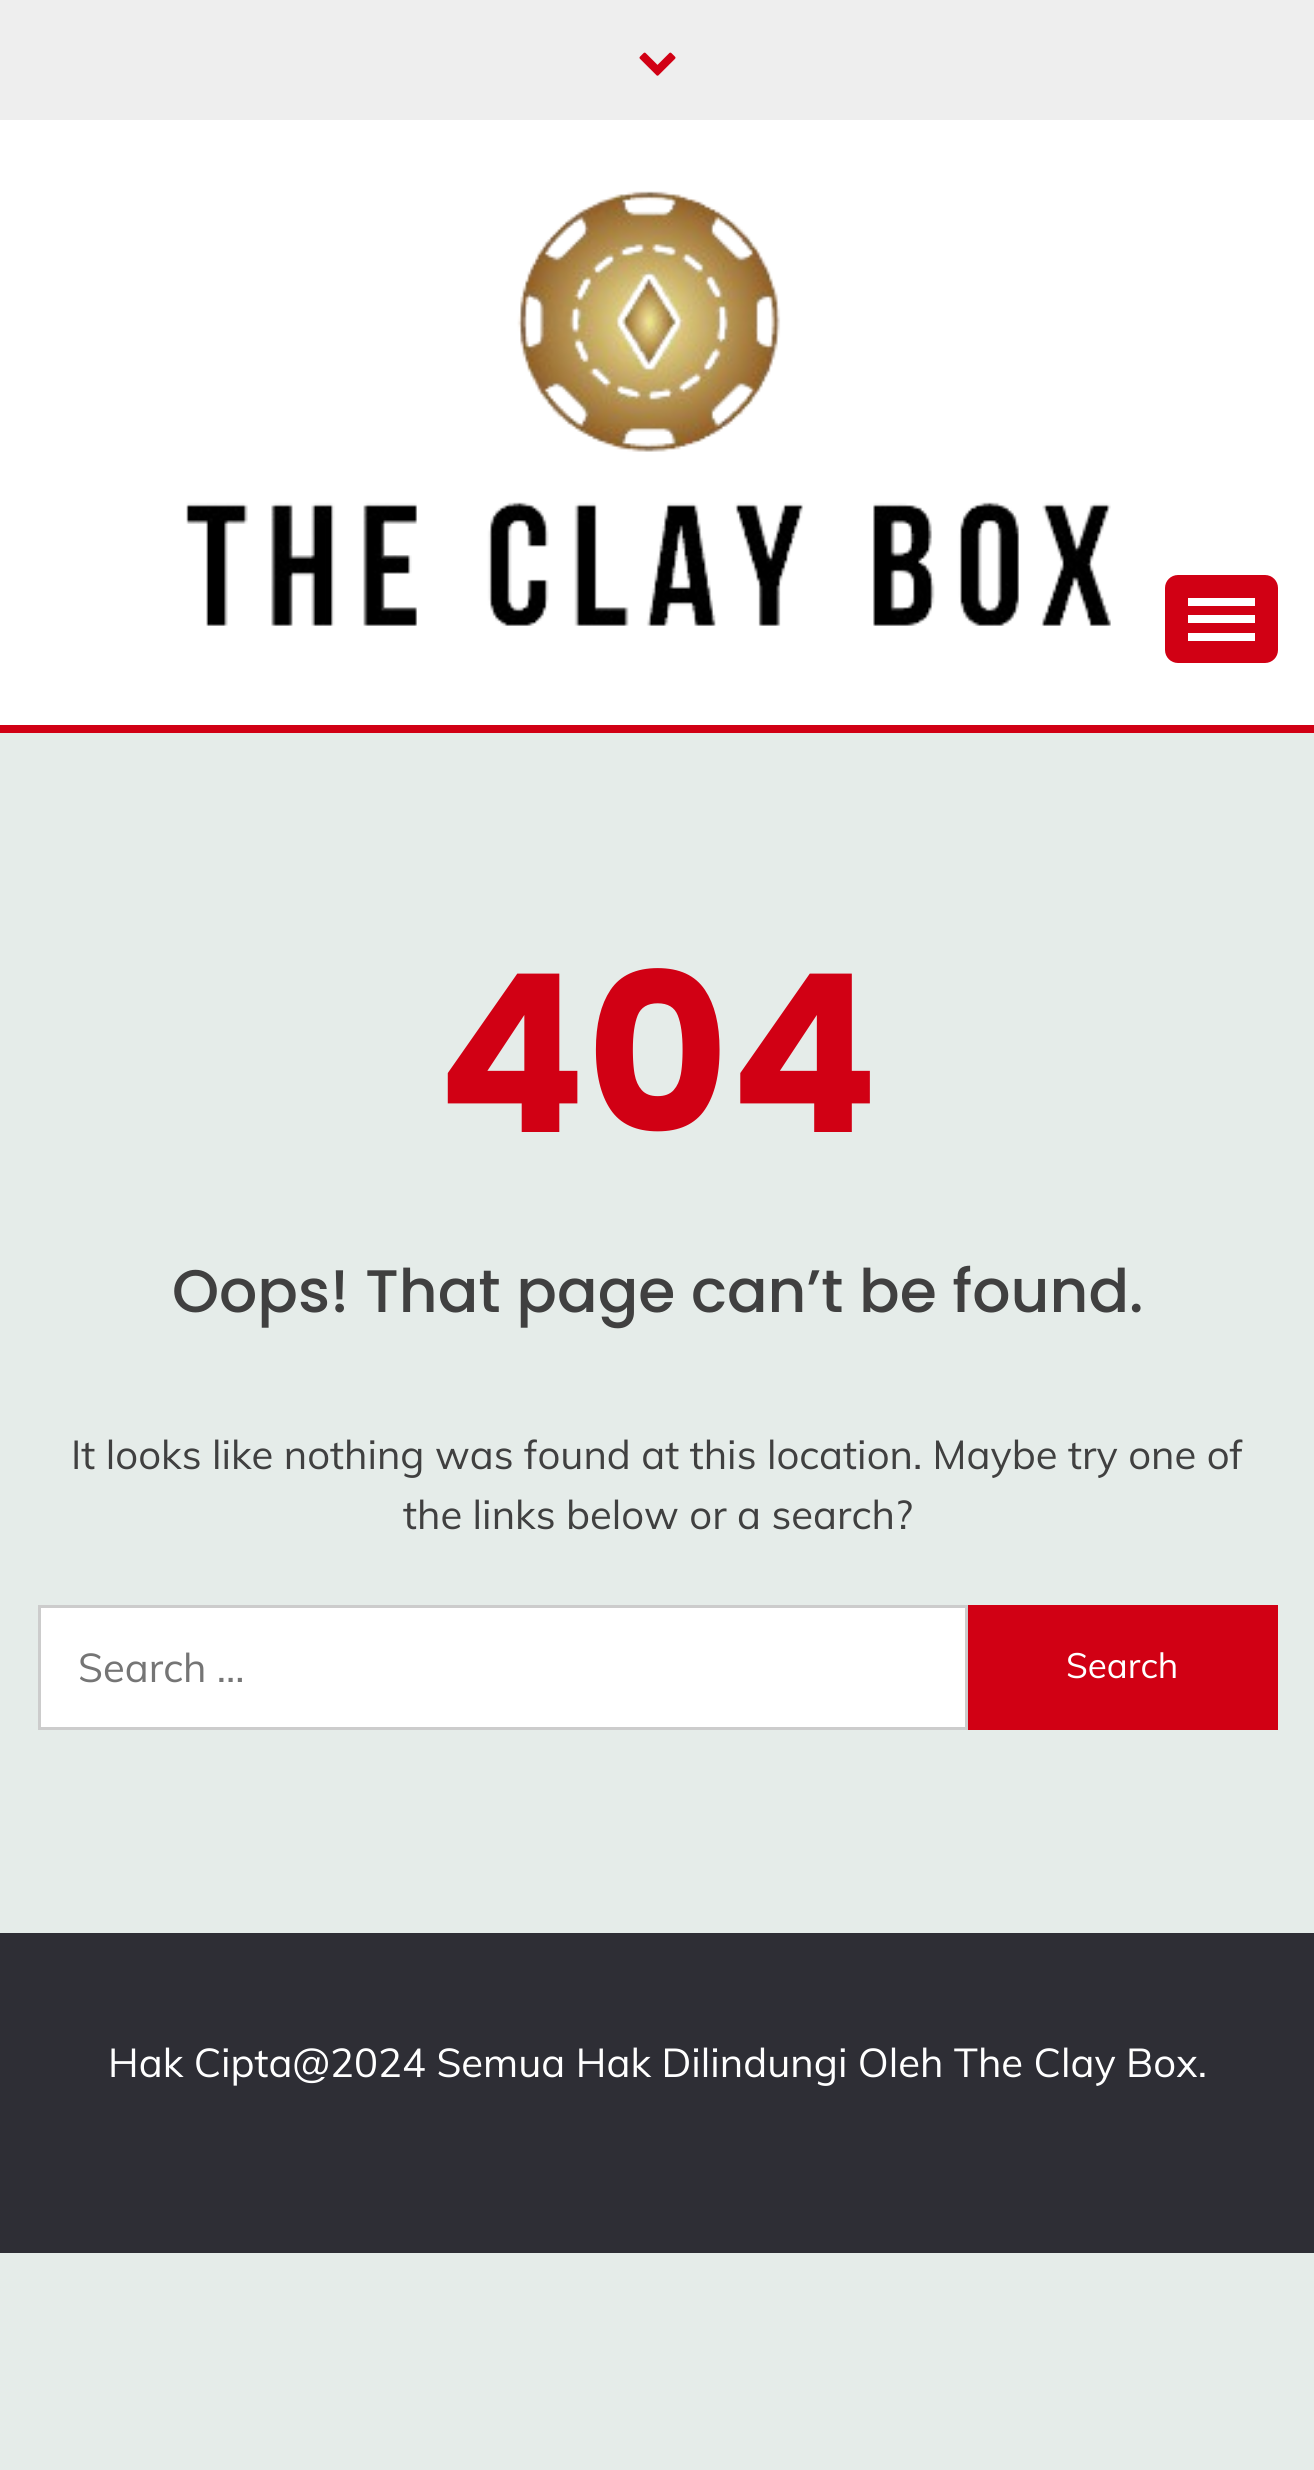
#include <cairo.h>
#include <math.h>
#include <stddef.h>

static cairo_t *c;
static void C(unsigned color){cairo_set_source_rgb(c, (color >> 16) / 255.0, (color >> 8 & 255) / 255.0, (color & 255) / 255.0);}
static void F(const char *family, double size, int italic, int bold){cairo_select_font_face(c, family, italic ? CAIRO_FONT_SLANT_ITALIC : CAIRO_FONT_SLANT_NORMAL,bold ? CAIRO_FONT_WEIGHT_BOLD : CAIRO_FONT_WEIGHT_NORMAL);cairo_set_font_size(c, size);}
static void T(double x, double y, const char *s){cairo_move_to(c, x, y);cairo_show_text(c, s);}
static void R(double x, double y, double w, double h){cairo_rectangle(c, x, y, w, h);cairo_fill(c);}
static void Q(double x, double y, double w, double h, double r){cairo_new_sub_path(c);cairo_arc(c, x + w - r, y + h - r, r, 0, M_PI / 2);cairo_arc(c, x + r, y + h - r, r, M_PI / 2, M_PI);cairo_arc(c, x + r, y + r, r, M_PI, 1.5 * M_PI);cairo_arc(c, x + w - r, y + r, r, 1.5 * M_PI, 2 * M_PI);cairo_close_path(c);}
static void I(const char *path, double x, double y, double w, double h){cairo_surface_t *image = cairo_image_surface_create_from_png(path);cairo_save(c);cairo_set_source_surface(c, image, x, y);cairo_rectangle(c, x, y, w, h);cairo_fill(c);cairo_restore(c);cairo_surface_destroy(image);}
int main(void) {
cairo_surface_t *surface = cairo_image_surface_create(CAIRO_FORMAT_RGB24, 1314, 2470);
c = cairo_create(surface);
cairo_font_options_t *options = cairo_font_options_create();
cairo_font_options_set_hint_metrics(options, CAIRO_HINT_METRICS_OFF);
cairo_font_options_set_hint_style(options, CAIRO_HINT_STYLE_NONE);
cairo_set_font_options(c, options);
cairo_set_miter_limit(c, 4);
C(0xe5ece9);
cairo_paint(c);
C(0xffffff);
R(0,120,1314,605);
C(0xeeeeee);
R(0,0,1314,120);
I("1.png",639,52,37,24);
I("2.png",186,191,925,435);
C(0xd10014);
Q(1165,575,113,88,13);
cairo_fill(c);
C(0xffffff);
R(1188,598,67,8);
R(1188,615,67,8);
R(1188,633,67,8);
C(0xd10014);
R(0,725,1314,8);
F("Poppins",220,0,1);
T(437,1132,"404");
F("Poppins Medium",60,0,0);
C(0x404040);
T(172,1312,"Oops! That page can’t be found.");
F("Muli",40,0,0);
T(71,1469,"It looks like nothing was found at this location. Maybe try one of");
T(403,1529,"the links below or a search?");
C(0xffffff);
cairo_rectangle(c,39.5,1606.5,927,122);
cairo_fill_preserve(c);
C(0xcccccc);
cairo_set_line_width(c,3);
cairo_stroke(c);
C(0x757575);
T(78,1682,"Search …");
C(0xd10014);
R(968,1605,310,125);
F("Muli",35,0,0);
C(0xffffff);
T(1066,1678,"Search");
C(0x2e2e35);
R(0,1933,1314,320);
F("Muli",40,0,0);
C(0xffffff);
T(108,2077,"Hak Cipta@2024 Semua Hak Dilindungi Oleh The Clay Box.");
cairo_surface_write_to_png(surface, "o.png");
cairo_font_options_destroy(options);
cairo_destroy(c);
cairo_surface_destroy(surface);
return 0;
}
